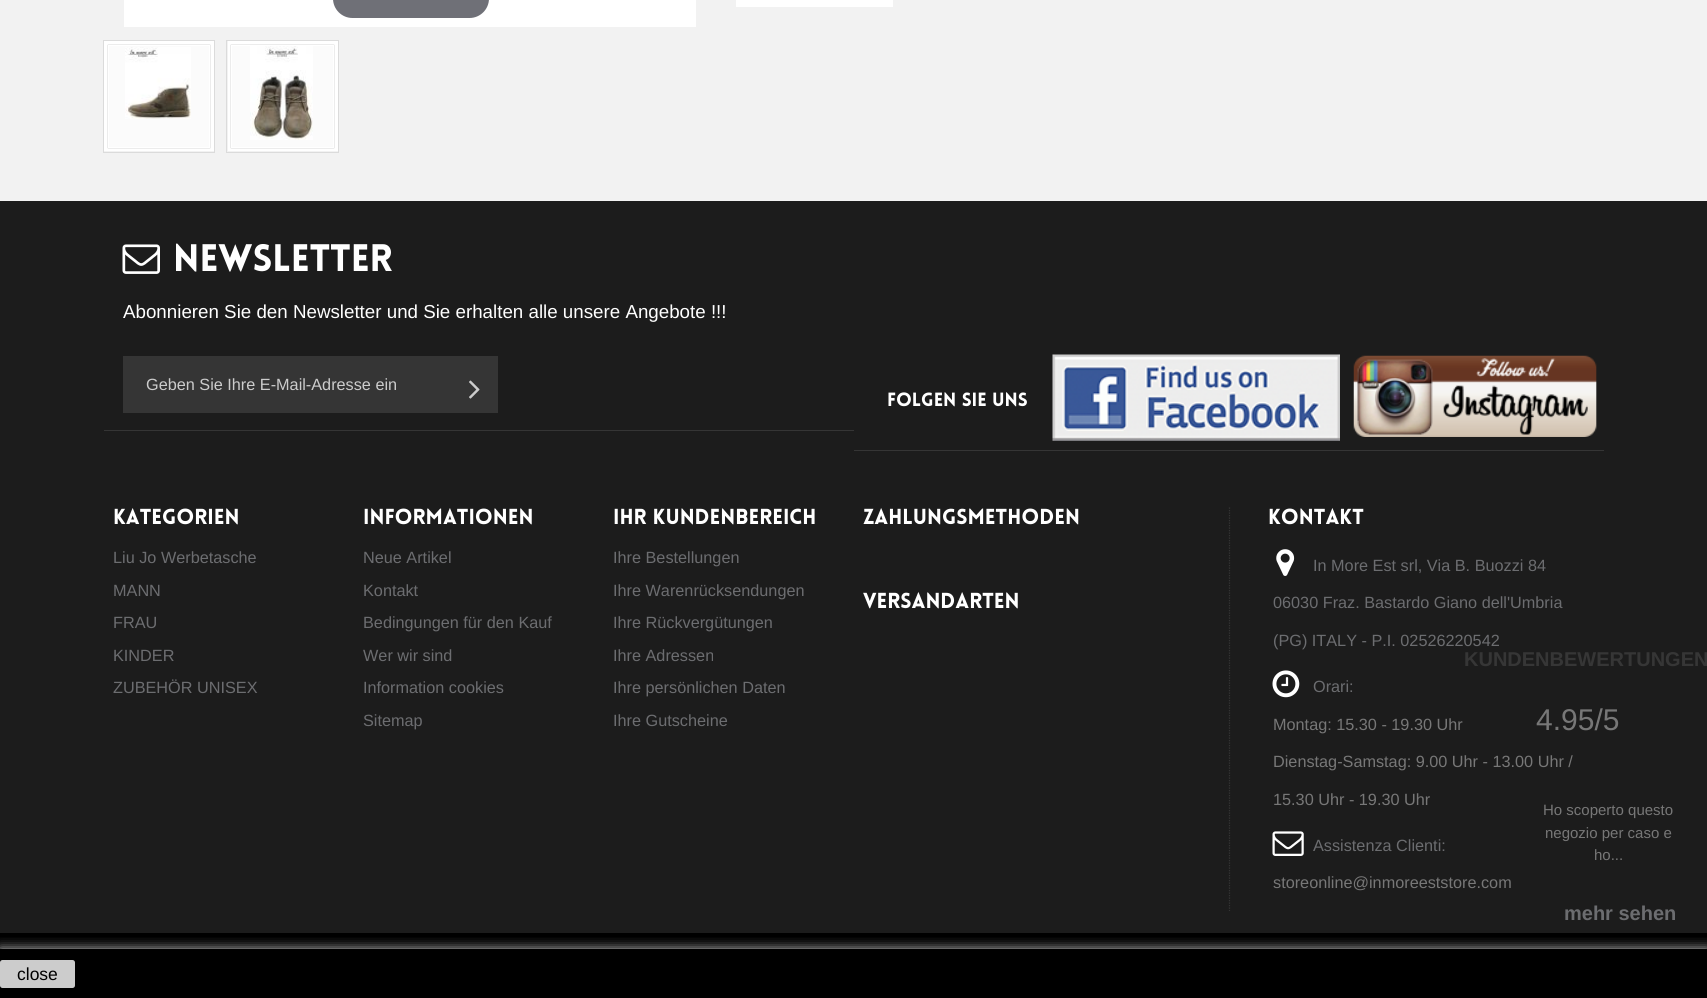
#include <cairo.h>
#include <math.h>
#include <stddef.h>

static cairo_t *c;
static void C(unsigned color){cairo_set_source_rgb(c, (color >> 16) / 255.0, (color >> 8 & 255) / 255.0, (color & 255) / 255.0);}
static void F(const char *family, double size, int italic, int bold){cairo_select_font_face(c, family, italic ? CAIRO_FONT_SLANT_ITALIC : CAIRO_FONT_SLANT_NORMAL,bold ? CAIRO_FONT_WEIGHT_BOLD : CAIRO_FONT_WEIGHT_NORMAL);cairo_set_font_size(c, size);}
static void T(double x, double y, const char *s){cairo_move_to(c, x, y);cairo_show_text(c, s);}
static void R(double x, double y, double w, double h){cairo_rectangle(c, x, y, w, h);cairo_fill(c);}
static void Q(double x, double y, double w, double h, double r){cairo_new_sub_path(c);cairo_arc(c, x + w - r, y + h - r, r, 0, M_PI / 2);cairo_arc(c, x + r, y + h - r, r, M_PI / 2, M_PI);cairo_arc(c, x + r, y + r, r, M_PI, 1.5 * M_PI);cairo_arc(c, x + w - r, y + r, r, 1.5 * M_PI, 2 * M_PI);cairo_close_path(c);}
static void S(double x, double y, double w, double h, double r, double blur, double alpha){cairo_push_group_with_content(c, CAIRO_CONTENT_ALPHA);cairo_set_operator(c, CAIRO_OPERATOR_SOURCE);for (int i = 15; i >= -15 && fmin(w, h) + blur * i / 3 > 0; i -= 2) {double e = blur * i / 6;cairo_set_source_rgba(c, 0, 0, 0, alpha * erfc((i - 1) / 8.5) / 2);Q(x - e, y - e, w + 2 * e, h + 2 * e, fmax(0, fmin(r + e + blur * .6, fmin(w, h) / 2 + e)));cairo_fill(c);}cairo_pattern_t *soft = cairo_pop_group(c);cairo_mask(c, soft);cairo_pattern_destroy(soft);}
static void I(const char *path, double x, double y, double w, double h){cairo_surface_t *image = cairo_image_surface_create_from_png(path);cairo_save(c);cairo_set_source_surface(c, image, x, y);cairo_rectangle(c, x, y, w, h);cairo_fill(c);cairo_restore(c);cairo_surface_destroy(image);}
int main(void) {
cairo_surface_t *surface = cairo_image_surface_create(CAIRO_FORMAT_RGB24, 1707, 998);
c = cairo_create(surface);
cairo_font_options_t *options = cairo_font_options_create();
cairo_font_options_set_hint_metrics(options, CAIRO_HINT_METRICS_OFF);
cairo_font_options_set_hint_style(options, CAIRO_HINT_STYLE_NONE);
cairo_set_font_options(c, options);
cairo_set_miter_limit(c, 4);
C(0x1c1c1c);
cairo_paint(c);
C(0xf2f2f2);
R(0,0,1707,201);
C(0xffffff);
R(124,0,572,27);
C(0x6f7077);
Q(333,-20,156,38,19.5);
cairo_fill(c);
cairo_rectangle(c,103.5,40.5,111,112);
C(0xdbdbdb);
cairo_set_line_width(c,1);
cairo_stroke(c);
C(0xfbfbfb);
R(109,46,100,101);
cairo_rectangle(c,106,43,106,106);
C(0xffffff);
cairo_set_line_width(c,4);
cairo_stroke(c);
cairo_save(c);
cairo_set_fill_rule(c,CAIRO_FILL_RULE_EVEN_ODD);
cairo_new_path(c);
cairo_move_to(c,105,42);
cairo_line_to(c,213,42);
cairo_line_to(c,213,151);
cairo_line_to(c,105,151);
cairo_close_path(c);
cairo_move_to(c,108,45);
cairo_line_to(c,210,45);
cairo_line_to(c,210,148);
cairo_line_to(c,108,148);
cairo_close_path(c);
cairo_clip(c);
C(0x000000);
S(108,45,102,103,0,.5,.3);
cairo_restore(c);
cairo_rectangle(c,108.5,45.5,101,102);
cairo_set_line_width(c,1);
cairo_stroke(c);
I("1.png",125,47,66,72);
cairo_rectangle(c,226.5,40.5,112,112);
C(0xdbdbdb);
cairo_stroke(c);
C(0xfbfbfb);
R(232,46,101,101);
cairo_rectangle(c,230,43,106,106);
C(0xffffff);
cairo_set_line_width(c,4);
cairo_stroke(c);
cairo_save(c);
cairo_set_fill_rule(c,CAIRO_FILL_RULE_EVEN_ODD);
cairo_new_path(c);
cairo_move_to(c,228,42);
cairo_line_to(c,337,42);
cairo_line_to(c,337,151);
cairo_line_to(c,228,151);
cairo_close_path(c);
cairo_move_to(c,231,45);
cairo_line_to(c,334,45);
cairo_line_to(c,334,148);
cairo_line_to(c,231,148);
cairo_close_path(c);
cairo_clip(c);
C(0x000000);
S(231,45,103,103,0,.5,.3);
cairo_restore(c);
cairo_rectangle(c,231.5,45.5,102,102);
cairo_set_line_width(c,1);
cairo_stroke(c);
I("2.png",250,46,63,94);
R(736,0,157,7);
C(0x000000);
R(0,933,1707,65);
C(0x353535);
R(104,430,750,1);
I("3.png",122,244,38,30);
F("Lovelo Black",37.5,0,0);
C(0xffffff);
T(173,271,"Newsletter");
F("Liberation Sans",18.75,0,0);
T(123,318,"Abonnieren Sie den Newsletter und Sie erhalten alle unsere Angebote !!!");
C(0x353535);
R(123,356,375,57);
F("Liberation Sans",16.25,0,0);
C(0xcccccc);
T(146,390,"Geben Sie Ihre E-Mail-Adresse ein");
I("4.png",469,380,11,19);
C(0x353535);
R(854,450,750,1);
F("Lovelo Black",18.75,0,0);
C(0xffffff);
T(887,406,"Folgen Sie uns");
I("5.png",1052,354,288,87);
I("6.png",1353,355,244,82);
F("Lovelo Black",21.25,0,0);
T(113,524,"KATEGORIEN");
F("Liberation Sans",16.25,0,0);
C(0x6c6d70);
T(113,563,"Liu Jo Werbetasche");
T(113,596,"MANN");
T(113,628,"FRAU");
T(113,661,"KINDER");
T(113,693,"ZUBEHÖR UNISEX");
F("Lovelo Black",21.25,0,0);
C(0xffffff);
T(363,524,"INFORMATIONEN");
F("Liberation Sans",16.25,0,0);
C(0x6c6d70);
T(363,563,"Neue Artikel");
T(363,596,"Kontakt");
T(363,628,"Bedingungen für den Kauf");
T(363,661,"Wer wir sind");
T(363,693,"Information cookies");
T(363,726,"Sitemap");
F("Lovelo Black",21.25,0,0);
C(0xffffff);
T(613,524,"IHR KUNDENBEREICH");
F("Liberation Sans",16.25,0,0);
C(0x6c6d70);
T(613,563,"Ihre Bestellungen");
T(613,596,"Ihre Warenrücksendungen");
T(613,628,"Ihre Rückvergütungen");
T(613,661,"Ihre Adressen");
T(613,693,"Ihre persönlichen Daten");
T(613,726,"Ihre Gutscheine");
F("Lovelo Black",21.25,0,0);
C(0xffffff);
T(863,524,"ZAHLUNGSMETHODEN");
T(863,608,"VERSANDARTEN");
cairo_new_path(c);
cairo_move_to(c,1229.5,507.5);
cairo_line_to(c,1229.5,911);
C(0x353535);
cairo_set_line_width(c,1.2);
cairo_set_dash(c,(double[]){1.25,1.25},2,0);
cairo_stroke(c);
C(0xffffff);
T(1268,524,"KONTAKT");
I("7.png",1276,549,19,27);
F("Liberation Sans",16.25,0,0);
C(0x6c6d70);
T(1313,571,"In More Est srl, Via B. Buozzi 84");
T(1273,608,"06030 Fraz. Bastardo Giano dell'Umbria");
T(1273,646,"(PG) ITALY - P.I. 02526220542");
I("8.png",1272,670,28,28);
T(1313,692,"Orari:");
C(0x777777);
T(1273,730,"Montag: 15.30 - 19.30 Uhr");
T(1273,767,"Dienstag-Samstag: 9.00 Uhr - 13.00 Uhr /");
T(1273,805,"15.30 Uhr - 19.30 Uhr");
I("9.png",1272,831,32,25);
C(0x6c6d70);
T(1313,851,"Assistenza Clienti:");
C(0x777777);
T(1273,888,"storeonline@inmoreeststore.com");
F("Liberation Sans",20,0,1);
C(0x363636);
T(1464,666,"KUNDENBEWERTUNGEN");
F("Liberation Sans",30,0,0);
C(0x777777);
T(1536,730,"4.95/5");
F("Liberation Sans",15,0,0);
T(1543,815,"Ho scoperto questo");
T(1545,838,"negozio per caso e");
T(1594,860,"ho...");
F("Liberation Sans",20,0,1);
C(0x6c6d70);
T(1564,920,"mehr sehen");
cairo_save(c);
cairo_rectangle(c,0,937,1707,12);
cairo_clip(c);
C(0xcccccc);
S(0,949,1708,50,0,6,1);
cairo_restore(c);
C(0xcccccc);
Q(0,960,75,28,2.5);
cairo_fill(c);
F("Liberation Sans",17.5,0,0);
C(0x000000);
T(17,980,"close");
cairo_surface_write_to_png(surface, "o.png");
cairo_font_options_destroy(options);
cairo_destroy(c);
cairo_surface_destroy(surface);
return 0;
}
